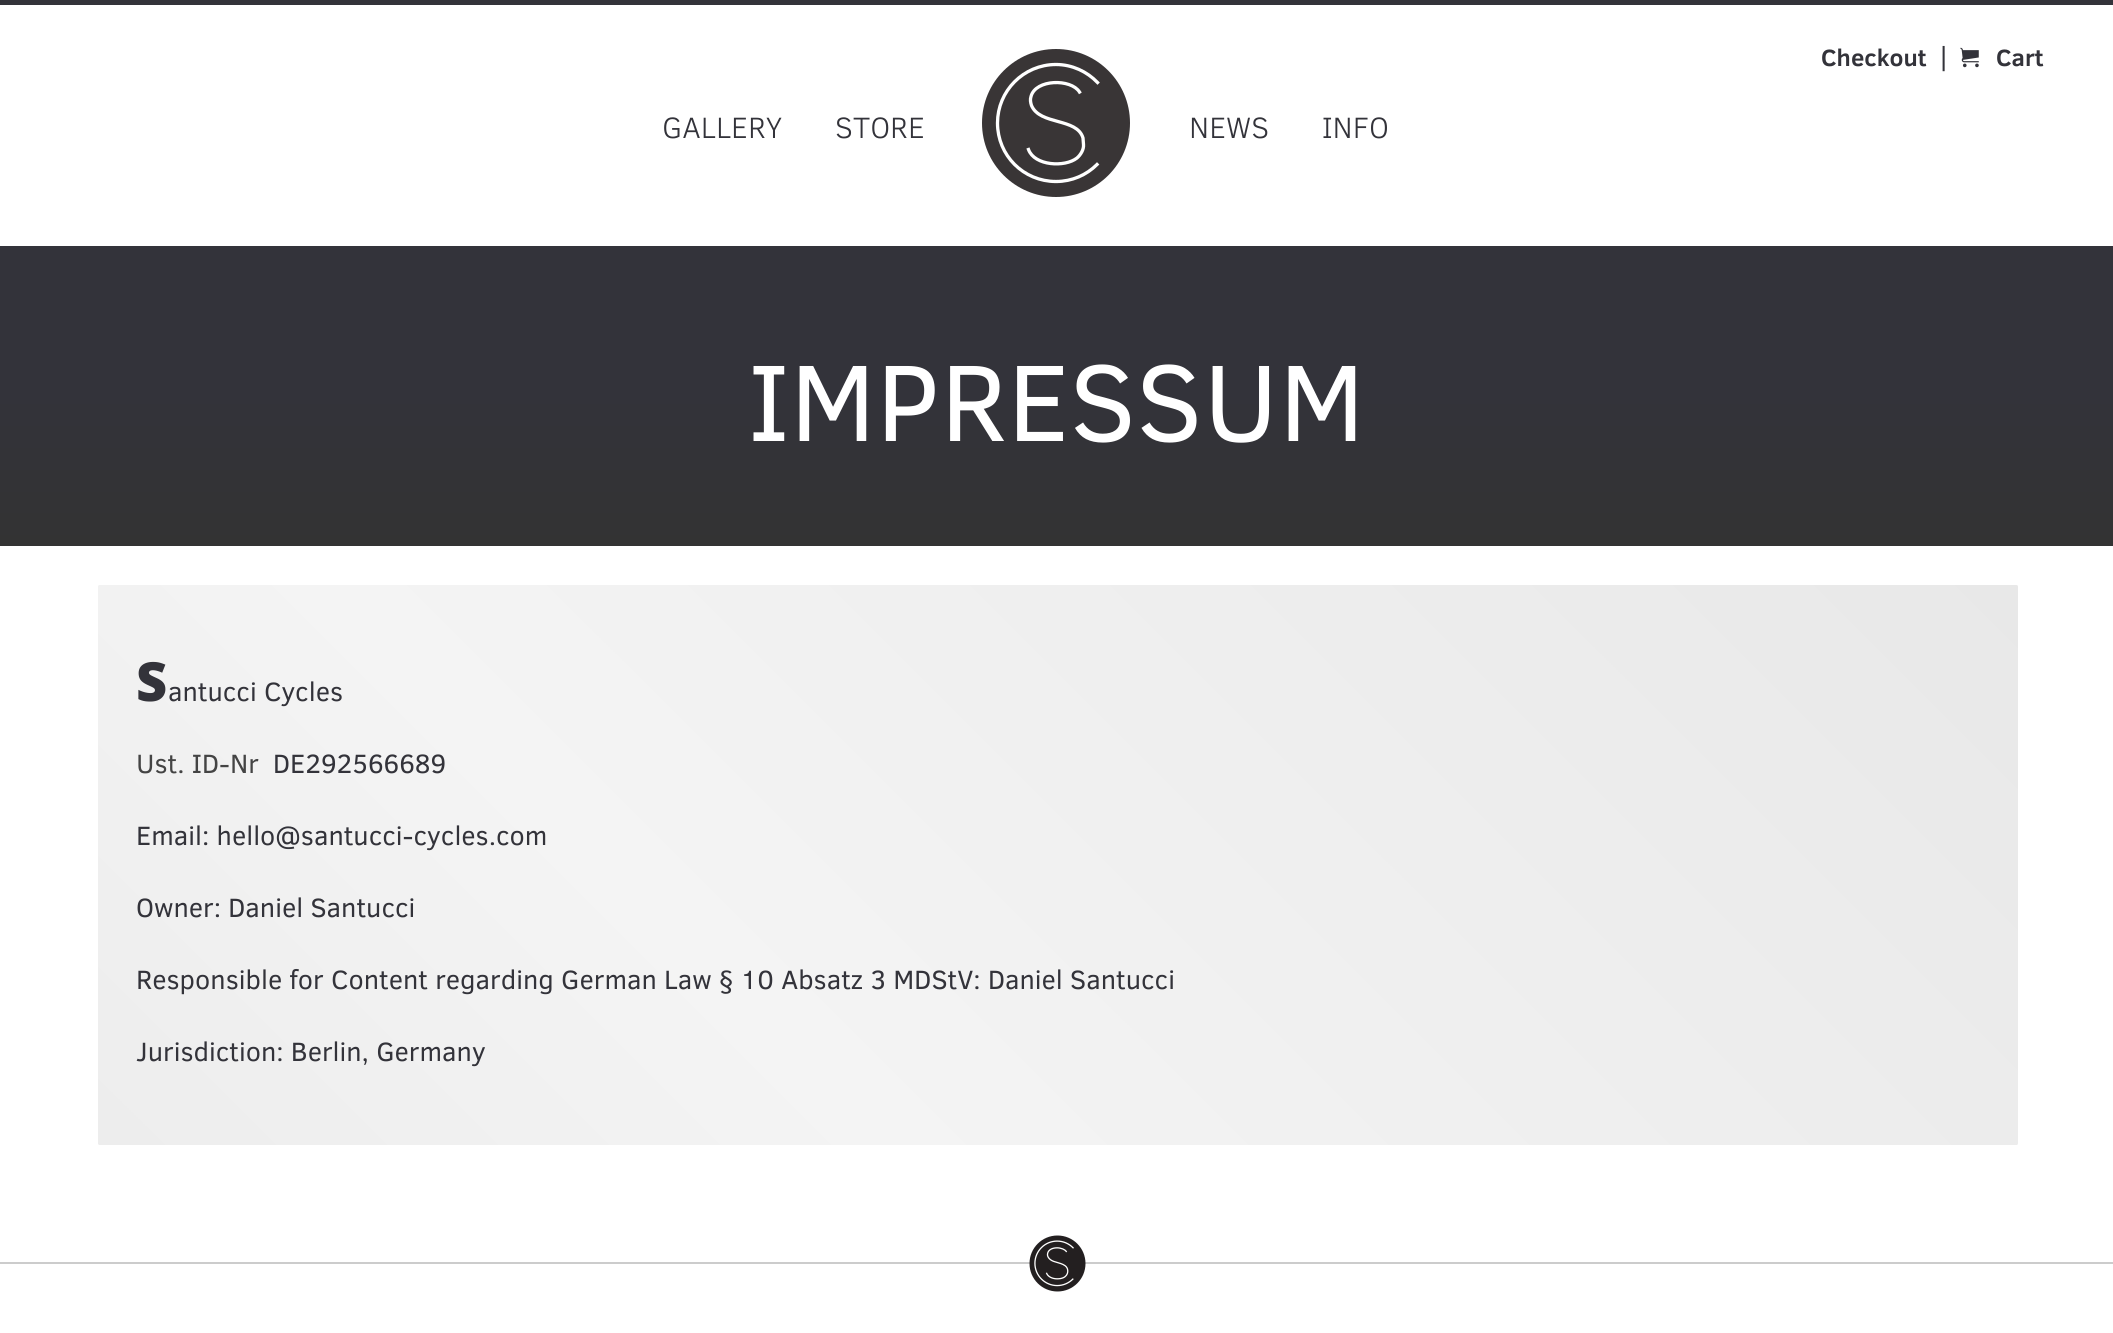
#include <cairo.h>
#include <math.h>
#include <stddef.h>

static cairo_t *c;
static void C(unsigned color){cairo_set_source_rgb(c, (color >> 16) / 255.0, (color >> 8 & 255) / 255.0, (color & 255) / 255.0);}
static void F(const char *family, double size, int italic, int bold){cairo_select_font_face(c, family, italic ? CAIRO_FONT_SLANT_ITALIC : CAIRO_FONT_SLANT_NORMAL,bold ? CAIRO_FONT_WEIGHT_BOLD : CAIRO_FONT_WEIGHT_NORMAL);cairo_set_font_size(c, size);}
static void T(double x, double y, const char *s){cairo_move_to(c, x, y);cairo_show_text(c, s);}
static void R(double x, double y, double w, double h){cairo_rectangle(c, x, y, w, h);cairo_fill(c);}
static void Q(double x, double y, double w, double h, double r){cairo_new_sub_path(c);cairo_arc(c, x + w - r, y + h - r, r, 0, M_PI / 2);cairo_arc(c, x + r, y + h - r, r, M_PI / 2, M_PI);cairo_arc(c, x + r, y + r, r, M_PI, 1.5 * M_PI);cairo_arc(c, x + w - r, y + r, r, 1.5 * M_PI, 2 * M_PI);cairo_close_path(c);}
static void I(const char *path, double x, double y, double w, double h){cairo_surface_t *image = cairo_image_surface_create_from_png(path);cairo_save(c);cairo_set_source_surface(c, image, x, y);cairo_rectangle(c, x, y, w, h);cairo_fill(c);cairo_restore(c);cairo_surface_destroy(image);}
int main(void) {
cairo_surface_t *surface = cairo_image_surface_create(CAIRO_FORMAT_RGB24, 2113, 1333);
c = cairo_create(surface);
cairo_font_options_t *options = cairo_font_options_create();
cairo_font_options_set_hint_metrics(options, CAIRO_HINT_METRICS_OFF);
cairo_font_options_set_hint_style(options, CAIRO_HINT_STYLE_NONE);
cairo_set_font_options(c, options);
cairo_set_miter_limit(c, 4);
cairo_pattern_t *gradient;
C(0xffffff);
cairo_paint(c);
C(0x33333a);
R(0,0,2113,5);
F("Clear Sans",24,0,1);
T(1821,66,"Checkout");
F("Clear Sans",27,0,0);
T(1938,66,"|");
I("1.png",1960,47,19,21);
F("Clear Sans",24,0,1);
T(1996,66,"Cart");
F("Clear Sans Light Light",30,0,0);
T(662,138,"GALLERY");
T(835,138,"STORE");
C(0x393536);
cairo_new_path(c);
cairo_arc(c,1056,123,74,0,2 * M_PI);
cairo_fill(c);
cairo_new_path(c);
cairo_move_to(c,1097,164.5);
cairo_curve_to(c,1086.5,175,1072,181.5,1056,181.5);
cairo_curve_to(c,1023.5,181.5,997.5,155.5,997.5,123);
cairo_curve_to(c,997.5,91,1023.5,64.5,1056,64.5);
cairo_curve_to(c,1072,64.5,1087,71.5,1097.5,82.5);
C(0xffffff);
cairo_set_line_width(c,3.3);
cairo_set_line_cap(c,CAIRO_LINE_CAP_SQUARE);
cairo_stroke(c);
cairo_new_path(c);
cairo_move_to(c,1028.5,149.5);
cairo_curve_to(c,1034.5,166,1065,167.5,1077,158);
cairo_curve_to(c,1080.5,155,1084,149.5,1083.5,144.5);
cairo_line_to(c,1083,138);
cairo_curve_to(c,1077,117.5,1040,125.5,1031.5,105.5);
cairo_curve_to(c,1030.5,102.5,1030,99.5,1031,96.5);
cairo_curve_to(c,1035.5,79,1071,78.5,1079.5,92);
cairo_stroke(c);
C(0x33333a);
T(1189,138,"NEWS");
T(1322,138,"INFO");
gradient = cairo_pattern_create_linear(1057,246,1057,546);
cairo_pattern_add_color_stop_rgba(gradient,0,0.2,0.2,0.227,1);
cairo_pattern_add_color_stop_rgba(gradient,.5,0.2,0.2,0.227,1);
cairo_pattern_add_color_stop_rgba(gradient,1,0.2,0.2,0.2,1);
cairo_set_source(c,gradient);
cairo_pattern_destroy(gradient);
R(0,246,2113,300);
F("Clear Sans",111,0,0);
C(0xffffff);
T(748,441,"IMPRESSUM");
gradient = cairo_pattern_create_linear(438,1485,1677,245);
cairo_pattern_add_color_stop_rgba(gradient,0,0.929,0.929,0.929,1);
cairo_pattern_add_color_stop_rgba(gradient,.32,0.957,0.957,0.957,1);
cairo_pattern_add_color_stop_rgba(gradient,1,0.91,0.91,0.91,1);
cairo_set_source(c,gradient);
cairo_pattern_destroy(gradient);
Q(98,585,1920,560,1.5);
cairo_fill(c);
F("Noto Sans Black",54,0,0);
C(0x33333a);
T(136,701,"S");
F("Clear Sans",27,0,0);
T(168,701,"antucci Cycles");
C(0x444444);
T(136,773,"Ust. ID-Nr");
C(0x33333a);
T(273,773,"DE292566689");
T(136,845,"Email: hello@santucci-cycles.com");
T(136,917,"Owner: Daniel Santucci");
T(136,989,"Responsible for Content regarding German Law § 10 Absatz 3 MDStV: Daniel Santucci");
T(136,1061,"Jurisdiction: Berlin, Germany");
C(0xcccccc);
R(0,1262,2113,2);
I("2.png",1029,1235,57,57);
cairo_surface_write_to_png(surface, "o.png");
cairo_font_options_destroy(options);
cairo_destroy(c);
cairo_surface_destroy(surface);
return 0;
}
